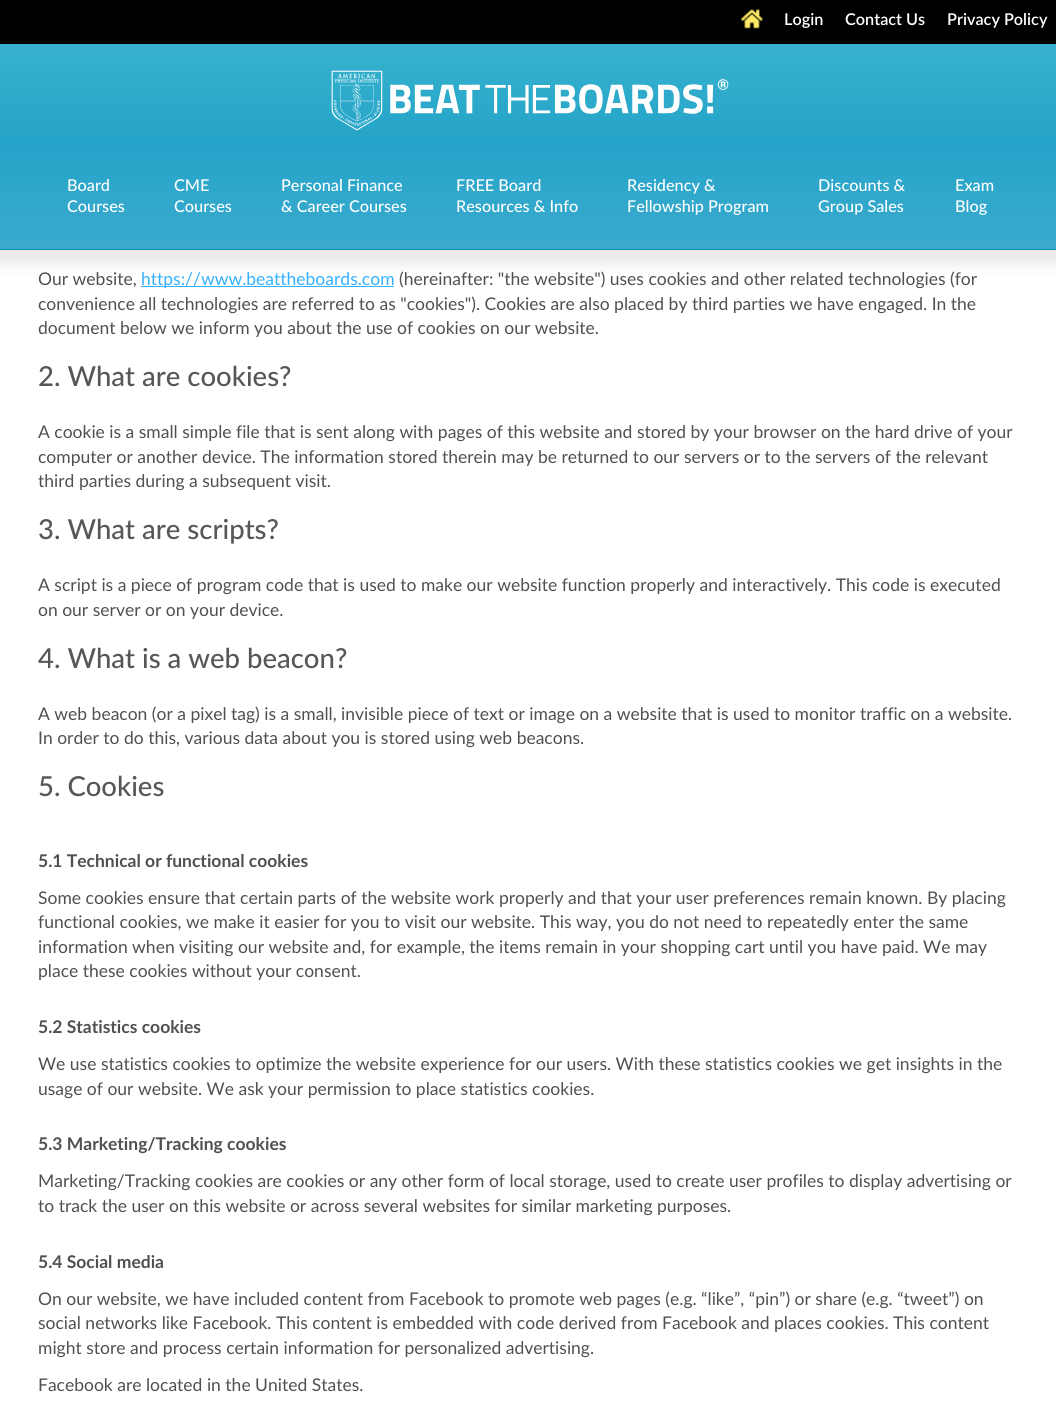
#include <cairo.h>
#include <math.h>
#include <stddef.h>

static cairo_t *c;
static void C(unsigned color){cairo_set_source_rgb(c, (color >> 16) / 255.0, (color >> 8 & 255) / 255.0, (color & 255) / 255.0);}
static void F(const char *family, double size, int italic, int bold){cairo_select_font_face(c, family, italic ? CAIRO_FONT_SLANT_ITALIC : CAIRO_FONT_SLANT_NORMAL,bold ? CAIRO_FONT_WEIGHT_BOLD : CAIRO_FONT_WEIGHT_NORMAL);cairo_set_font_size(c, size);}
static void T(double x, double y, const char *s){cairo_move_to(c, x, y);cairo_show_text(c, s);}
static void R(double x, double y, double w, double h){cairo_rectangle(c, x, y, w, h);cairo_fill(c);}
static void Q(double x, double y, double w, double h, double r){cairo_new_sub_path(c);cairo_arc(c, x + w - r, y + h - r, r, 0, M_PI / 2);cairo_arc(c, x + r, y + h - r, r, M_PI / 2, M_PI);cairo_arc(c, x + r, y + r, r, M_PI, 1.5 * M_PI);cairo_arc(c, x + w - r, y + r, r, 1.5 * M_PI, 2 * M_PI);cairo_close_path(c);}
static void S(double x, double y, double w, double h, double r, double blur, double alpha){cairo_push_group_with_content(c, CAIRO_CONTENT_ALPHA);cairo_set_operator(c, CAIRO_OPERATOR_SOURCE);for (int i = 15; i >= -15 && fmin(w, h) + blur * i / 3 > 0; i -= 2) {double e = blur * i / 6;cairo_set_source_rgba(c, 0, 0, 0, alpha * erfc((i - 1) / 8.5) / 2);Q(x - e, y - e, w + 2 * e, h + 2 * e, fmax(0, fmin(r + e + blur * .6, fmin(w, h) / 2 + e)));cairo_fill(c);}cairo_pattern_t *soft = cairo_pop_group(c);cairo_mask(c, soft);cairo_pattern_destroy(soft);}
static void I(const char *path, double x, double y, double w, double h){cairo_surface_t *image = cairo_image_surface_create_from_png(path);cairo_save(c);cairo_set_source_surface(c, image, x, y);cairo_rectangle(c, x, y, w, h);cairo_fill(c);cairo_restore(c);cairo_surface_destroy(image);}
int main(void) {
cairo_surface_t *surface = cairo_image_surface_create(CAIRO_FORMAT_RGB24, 1056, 1428);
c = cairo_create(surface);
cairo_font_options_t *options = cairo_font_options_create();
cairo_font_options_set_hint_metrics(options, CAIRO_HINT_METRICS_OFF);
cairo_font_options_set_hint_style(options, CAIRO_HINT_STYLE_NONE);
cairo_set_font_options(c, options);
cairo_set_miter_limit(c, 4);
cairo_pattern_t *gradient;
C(0xffffff);
cairo_paint(c);
C(0x000000);
S(-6,33,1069,231,0,7,.09);
C(0x000000);
R(0,0,1056,44);
I("1.png",741,9,22,20);
F("Lato SemiBold",16.25,0,0);
C(0xffffff);
T(784,25,"Login");
T(845,25,"Contact Us");
T(947,25,"Privacy Policy");
gradient = cairo_pattern_create_linear(528,249,528,31);
cairo_pattern_add_color_stop_rgba(gradient,0,0.227,0.667,0.808,1);
cairo_pattern_add_color_stop_rgba(gradient,.5,0.145,0.643,0.788,1);
cairo_pattern_add_color_stop_rgba(gradient,1,0.227,0.706,0.808,1);
cairo_set_source(c,gradient);
cairo_pattern_destroy(gradient);
R(0,44,1056,205);
C(0x048cb1);
R(0,249,1056,1);
I("2.png",331,70,398,61);
F("Lato Medium",16.25,0,0);
C(0xffffff);
T(67,191,"Board");
T(67,212,"Courses");
T(174,191,"CME");
T(174,212,"Courses");
T(281,191,"Personal Finance");
T(281,212,"& Career Courses");
T(456,191,"FREE Board");
T(456,212,"Resources & Info");
T(627,191,"Residency &");
T(627,212,"Fellowship Program");
T(818,191,"Discounts &");
T(818,212,"Group Sales");
T(955,191,"Exam");
T(955,212,"Blog");
F("Lato",17.5,0,0);
C(0x505050);
T(38,285,"Our website,");
C(0x34b0ff);
R(141,286,253,1);
T(141,285,"https://www.beattheboards.com");
C(0x505050);
T(399,285,"(hereinafter: \"the website\") uses cookies and other related technologies (for");
T(38,310,"convenience all technologies are referred to as \"cookies\"). Cookies are also placed by third parties we have engaged. In the");
T(38,334,"document below we inform you about the use of cookies on our website.");
F("Lato Medium",27.5,0,0);
C(0x575757);
T(38,386,"2. What are cookies?");
F("Lato",17.5,0,0);
C(0x505050);
T(38,438,"A cookie is a small simple file that is sent along with pages of this website and stored by your browser on the hard drive of your");
T(38,463,"computer or another device. The information stored therein may be returned to our servers or to the servers of the relevant");
T(38,487,"third parties during a subsequent visit.");
F("Lato Medium",27.5,0,0);
C(0x575757);
T(38,539,"3. What are scripts?");
F("Lato",17.5,0,0);
C(0x505050);
T(38,591,"A script is a piece of program code that is used to make our website function properly and interactively. This code is executed");
T(38,616,"on our server or on your device.");
F("Lato Medium",27.5,0,0);
C(0x575757);
T(38,668,"4. What is a web beacon?");
F("Lato",17.5,0,0);
C(0x505050);
T(38,720,"A web beacon (or a pixel tag) is a small, invisible piece of text or image on a website that is used to monitor traffic on a website.");
T(38,744,"In order to do this, various data about you is stored using web beacons.");
F("Lato Medium",27.5,0,0);
C(0x575757);
T(38,796,"5. Cookies");
F("Lato",17.5,0,1);
C(0x505050);
T(38,867,"5.1 Technical or functional cookies");
F("Lato",17.5,0,0);
T(38,904,"Some cookies ensure that certain parts of the website work properly and that your user preferences remain known. By placing");
T(38,928,"functional cookies, we make it easier for you to visit our website. This way, you do not need to repeatedly enter the same");
T(38,953,"information when visiting our website and, for example, the items remain in your shopping cart until you have paid. We may");
T(38,977,"place these cookies without your consent.");
F("Lato",17.5,0,1);
T(38,1033,"5.2 Statistics cookies");
F("Lato",17.5,0,0);
T(38,1070,"We use statistics cookies to optimize the website experience for our users. With these statistics cookies we get insights in the");
T(38,1095,"usage of our website. We ask your permission to place statistics cookies.");
F("Lato",17.5,0,1);
T(38,1150,"5.3 Marketing/Tracking cookies");
F("Lato",17.5,0,0);
T(38,1187,"Marketing/Tracking cookies are cookies or any other form of local storage, used to create user profiles to display advertising or");
T(38,1212,"to track the user on this website or across several websites for similar marketing purposes.");
F("Lato",17.5,0,1);
T(38,1268,"5.4 Social media");
F("Lato",17.5,0,0);
T(38,1305,"On our website, we have included content from Facebook to promote web pages (e.g. “like”, “pin”) or share (e.g. “tweet”) on");
T(38,1329,"social networks like Facebook. This content is embedded with code derived from Facebook and places cookies. This content");
T(38,1354,"might store and process certain information for personalized advertising.");
T(38,1391,"Facebook are located in the United States.");
cairo_surface_write_to_png(surface, "o.png");
cairo_font_options_destroy(options);
cairo_destroy(c);
cairo_surface_destroy(surface);
return 0;
}
